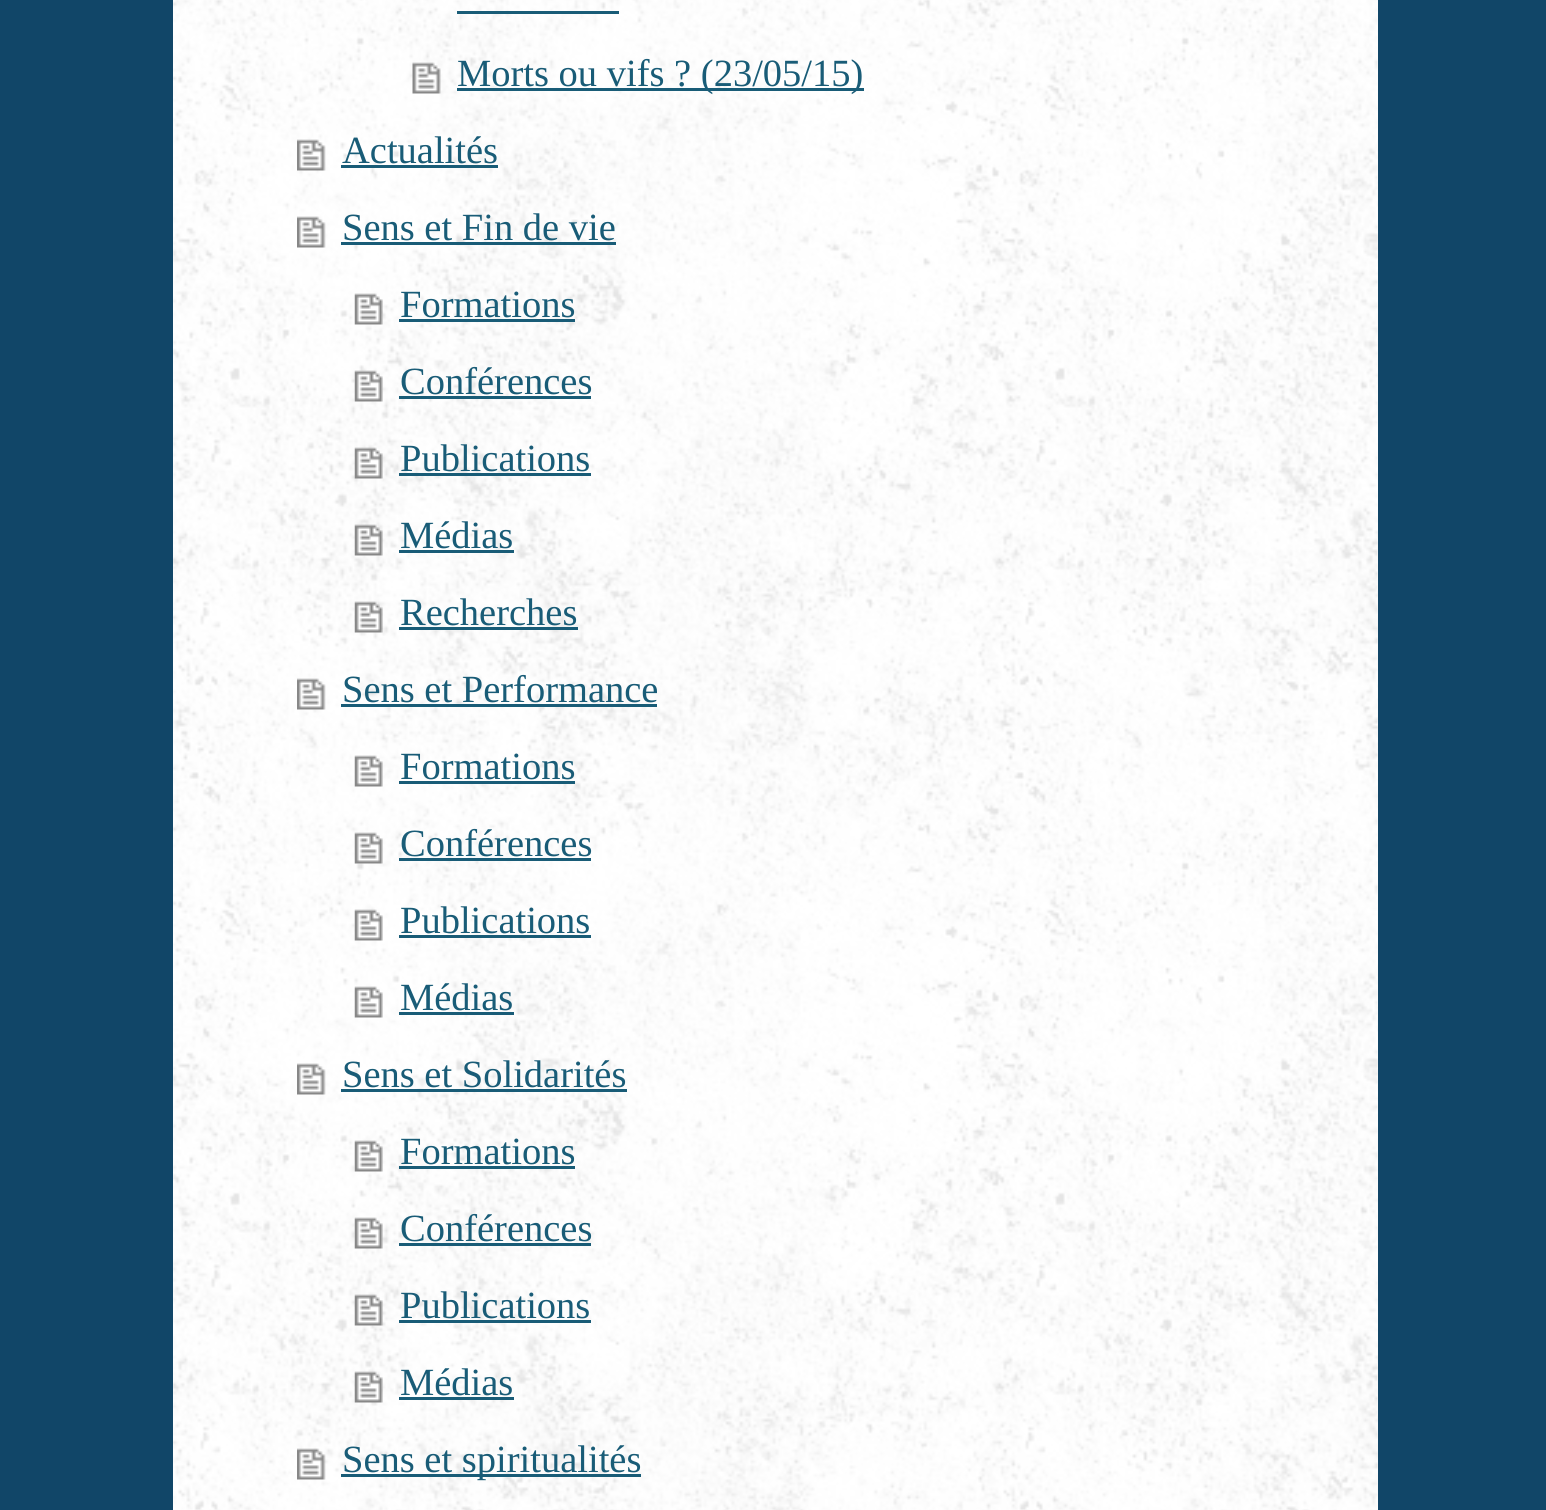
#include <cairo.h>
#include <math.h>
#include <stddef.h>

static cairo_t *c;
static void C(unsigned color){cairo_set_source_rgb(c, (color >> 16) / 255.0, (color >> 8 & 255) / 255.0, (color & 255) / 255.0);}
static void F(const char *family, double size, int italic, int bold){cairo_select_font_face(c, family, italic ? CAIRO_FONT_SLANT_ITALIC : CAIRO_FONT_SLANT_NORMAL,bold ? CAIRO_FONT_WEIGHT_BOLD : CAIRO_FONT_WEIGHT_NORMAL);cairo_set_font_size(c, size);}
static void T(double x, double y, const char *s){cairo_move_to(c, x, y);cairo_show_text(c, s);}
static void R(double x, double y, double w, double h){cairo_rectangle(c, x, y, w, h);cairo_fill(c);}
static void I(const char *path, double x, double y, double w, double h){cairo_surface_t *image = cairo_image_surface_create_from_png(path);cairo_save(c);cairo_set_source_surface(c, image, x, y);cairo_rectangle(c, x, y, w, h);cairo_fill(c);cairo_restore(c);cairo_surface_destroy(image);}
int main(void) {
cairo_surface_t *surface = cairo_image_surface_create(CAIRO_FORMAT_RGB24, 1546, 1510);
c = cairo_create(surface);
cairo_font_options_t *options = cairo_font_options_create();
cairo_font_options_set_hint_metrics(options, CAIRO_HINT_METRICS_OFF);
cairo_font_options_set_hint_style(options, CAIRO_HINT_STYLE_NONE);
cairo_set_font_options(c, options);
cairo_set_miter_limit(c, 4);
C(0x114668);
cairo_paint(c);
C(0xffffff);
R(173,0,1205,1510);
I("1.png",173,0,1205,1510);
C(0x195c77);
R(457,11,162,3);
I("2.png",412,62,29,32);
R(457,88,407,3);
F("Liberation Serif",38.5,0,0);
T(457,86,"Morts ou vifs ? (23/05/15)");
I("3.png",297,139,29,32);
T(342,163,"Actualités");
R(341,165,157,3);
I("4.png",297,216,29,32);
T(342,240,"Sens et Fin de vie");
R(341,242,275,3);
I("5.png",354,293,29,32);
T(400,317,"Formations");
R(399,319,176,3);
I("6.png",354,370,29,32);
T(400,394,"Conférences");
R(399,396,192,3);
I("7.png",354,447,29,32);
T(400,471,"Publications");
R(399,473,192,3);
I("8.png",354,524,29,32);
T(400,548,"Médias");
R(399,550,115,3);
I("9.png",354,601,29,32);
T(400,625,"Recherches");
R(399,627,179,3);
I("10.png",297,678,29,32);
T(342,702,"Sens et Performance");
R(341,704,316,3);
I("11.png",354,755,29,32);
T(400,779,"Formations");
R(399,781,176,3);
I("12.png",354,832,29,32);
T(400,856,"Conférences");
R(399,858,192,3);
I("13.png",354,909,29,32);
T(400,933,"Publications");
R(399,935,192,3);
I("14.png",354,986,29,32);
T(400,1010,"Médias");
R(399,1012,115,3);
I("15.png",297,1063,29,32);
T(342,1087,"Sens et Solidarités");
R(341,1089,286,3);
I("16.png",354,1140,29,32);
T(400,1164,"Formations");
R(399,1166,176,3);
I("17.png",354,1217,29,32);
T(400,1241,"Conférences");
R(399,1243,192,3);
I("18.png",354,1294,29,32);
T(400,1318,"Publications");
R(399,1320,192,3);
I("19.png",354,1371,29,32);
T(400,1395,"Médias");
R(399,1397,115,3);
I("20.png",297,1448,29,32);
R(341,1474,300,3);
T(342,1472,"Sens et spiritualités");
cairo_surface_write_to_png(surface, "o.png");
cairo_font_options_destroy(options);
cairo_destroy(c);
cairo_surface_destroy(surface);
return 0;
}
